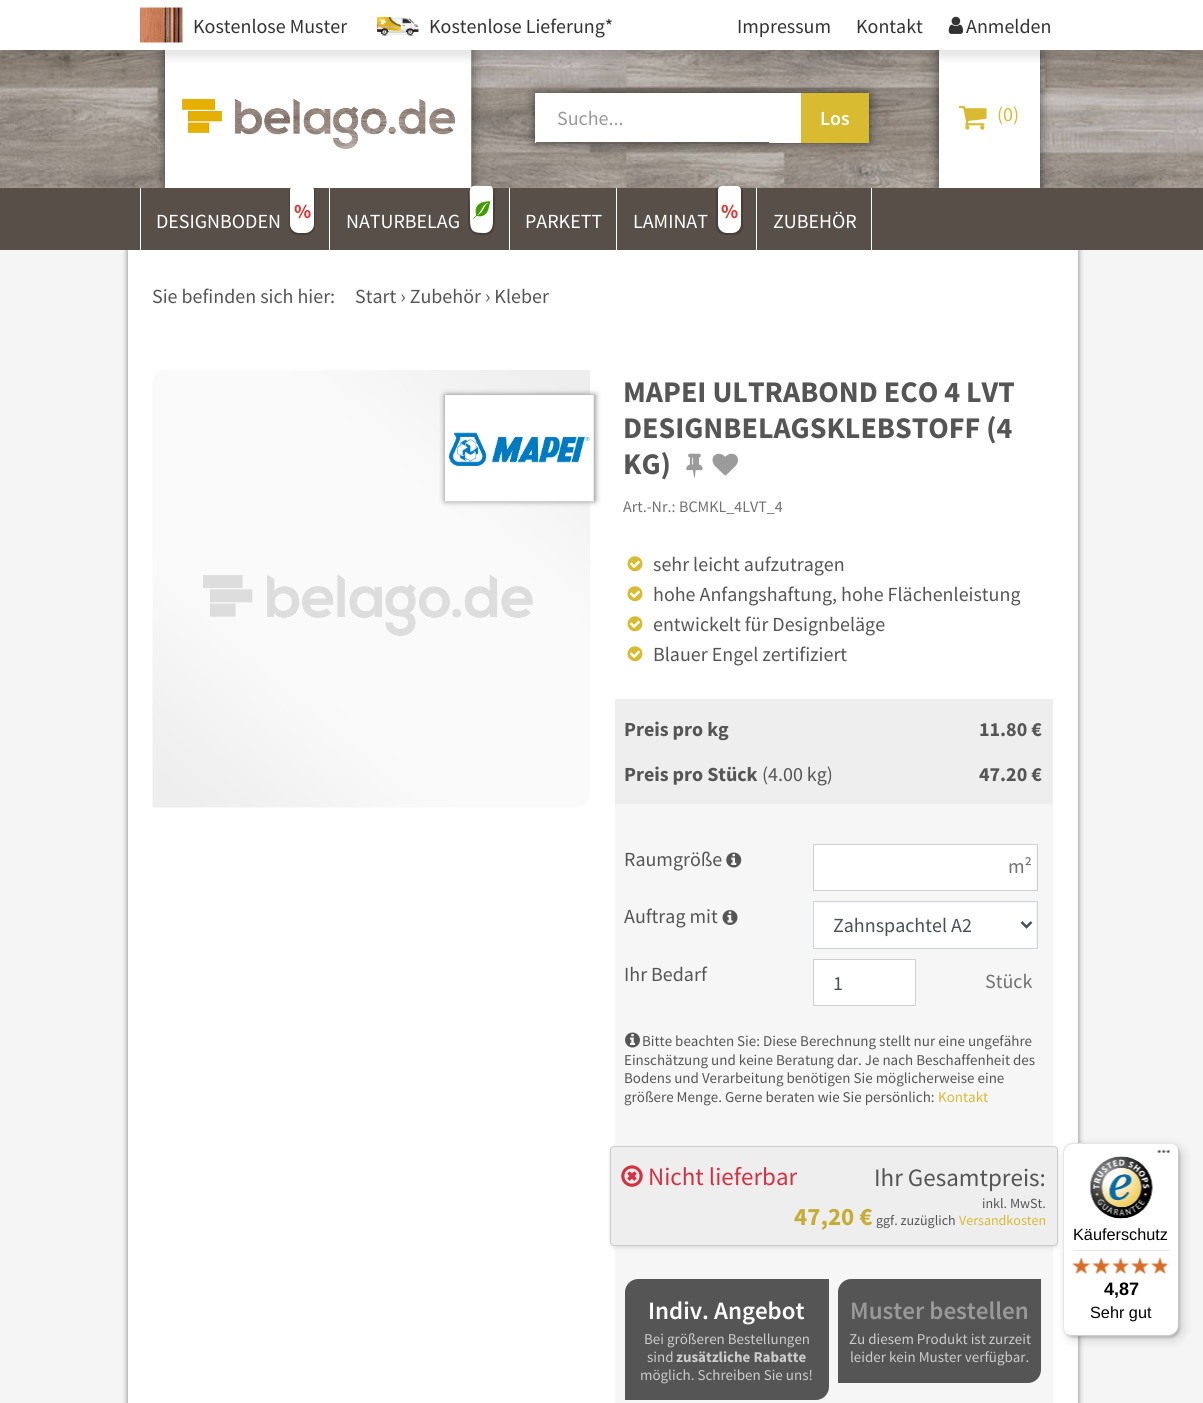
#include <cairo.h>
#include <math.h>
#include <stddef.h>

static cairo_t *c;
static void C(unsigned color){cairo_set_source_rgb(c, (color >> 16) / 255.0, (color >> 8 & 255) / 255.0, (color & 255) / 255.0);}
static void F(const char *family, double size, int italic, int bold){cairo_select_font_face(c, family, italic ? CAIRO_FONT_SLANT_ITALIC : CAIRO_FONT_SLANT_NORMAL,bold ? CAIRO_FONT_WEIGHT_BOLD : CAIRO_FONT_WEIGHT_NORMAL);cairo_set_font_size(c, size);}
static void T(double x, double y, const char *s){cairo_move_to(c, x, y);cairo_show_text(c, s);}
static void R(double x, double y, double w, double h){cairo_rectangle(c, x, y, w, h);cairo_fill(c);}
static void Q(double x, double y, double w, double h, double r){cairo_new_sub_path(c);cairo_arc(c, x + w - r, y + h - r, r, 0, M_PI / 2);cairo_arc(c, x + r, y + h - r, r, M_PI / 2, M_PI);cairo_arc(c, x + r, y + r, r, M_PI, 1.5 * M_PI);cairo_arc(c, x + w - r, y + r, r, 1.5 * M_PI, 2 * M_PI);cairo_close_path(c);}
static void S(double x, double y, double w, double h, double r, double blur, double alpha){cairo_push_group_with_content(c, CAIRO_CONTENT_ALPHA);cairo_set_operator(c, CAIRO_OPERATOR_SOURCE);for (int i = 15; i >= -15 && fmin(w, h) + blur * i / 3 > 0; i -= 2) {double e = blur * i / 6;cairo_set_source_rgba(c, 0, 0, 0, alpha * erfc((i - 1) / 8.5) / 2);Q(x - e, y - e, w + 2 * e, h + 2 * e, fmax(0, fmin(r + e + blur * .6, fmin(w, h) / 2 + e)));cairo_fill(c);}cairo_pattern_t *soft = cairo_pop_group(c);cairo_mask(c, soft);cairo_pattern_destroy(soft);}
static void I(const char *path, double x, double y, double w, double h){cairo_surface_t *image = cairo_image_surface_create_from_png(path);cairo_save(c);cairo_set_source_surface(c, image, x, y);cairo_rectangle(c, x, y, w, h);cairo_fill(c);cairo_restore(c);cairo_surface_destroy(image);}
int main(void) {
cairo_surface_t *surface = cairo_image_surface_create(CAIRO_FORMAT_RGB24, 1203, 1403);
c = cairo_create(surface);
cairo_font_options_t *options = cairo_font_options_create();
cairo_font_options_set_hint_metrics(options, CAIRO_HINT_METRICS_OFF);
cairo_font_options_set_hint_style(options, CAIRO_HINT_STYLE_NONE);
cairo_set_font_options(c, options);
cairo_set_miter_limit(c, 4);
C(0xf5f5f5);
cairo_paint(c);
C(0xa29285);
R(0,187,1203,1);
I("4.png",0,50,1203,138);
C(0x000000);
S(165,50,306,138,0,6,.6);
C(0xffffff);
R(165,50,306,138);
I("5.png",182,50,290,138);
C(0x000000);
S(939,50,101,138,0,6,.6);
C(0xffffff);
R(939,50,101,138);
C(0x000000);
S(0,8,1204,50,0,4,.1);
C(0xffffff);
R(0,0,1203,50);
I("1.png",140,7,43,36);
F("Source Sans Pro",20,0,0);
C(0x333333);
T(193,33,"Kostenlose Muster");
I("2.png",377,17,42,19);
T(429,33,"Kostenlose Lieferung*");
T(737,33,"Impressum");
T(856,33,"Kontakt");
I("3.png",948,16,15,18);
T(966,33,"Anmelden");
C(0x000000);
S(535,93,334,50,0,6,.6);
C(0xffffff);
R(536,94,233,47);
R(535,93,234,1);
R(535,141,234,1);
R(535,93,1,50);
C(0x999999);
T(557,125,"Suche...");
C(0xffffff);
R(769,93,32,50);
C(0xd8bb31);
R(801,93,68,50);
F("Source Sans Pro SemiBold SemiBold",20,0,0);
C(0xffffff);
T(820,125,"Los");
I("6.png",958,106,29,24);
F("Source Sans Pro",20,0,0);
C(0xd8bb31);
T(997,121,"(0)");
C(0x000000);
S(128,250,950,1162,0,3,.5);
C(0x574f48);
R(0,188,1203,62);
C(0xffffff);
R(329,188,1,62);
R(140,188,1,62);
cairo_set_source_rgba(c,0,0,0,0.2);
cairo_set_fill_rule(c,CAIRO_FILL_RULE_EVEN_ODD);
cairo_new_path(c);
cairo_move_to(c,294,186);
cairo_curve_to(c,291,186,289,188,289,191);
cairo_line_to(c,289,225);
cairo_curve_to(c,289,231,293,235,299,235);
cairo_line_to(c,305,235);
cairo_curve_to(c,311,235,315,231,315,225);
cairo_line_to(c,315,191);
cairo_curve_to(c,315,188,313,186,310,186);
cairo_close_path(c);
cairo_move_to(c,294,186);
cairo_curve_to(c,292,186,290,188,290,190);
cairo_line_to(c,290,224);
cairo_curve_to(c,290,229,294,232,299,232);
cairo_line_to(c,305,232);
cairo_curve_to(c,310,232,314,229,314,224);
cairo_line_to(c,314,190);
cairo_curve_to(c,314,188,312,186,310,186);
cairo_close_path(c);
cairo_fill(c);
C(0xffffff);
cairo_new_path(c);
cairo_move_to(c,294,186);
cairo_line_to(c,310,186);
cairo_curve_to(c,312,186,314,188,314,190);
cairo_line_to(c,314,224);
cairo_curve_to(c,314,229,310,233,305,233);
cairo_line_to(c,299,233);
cairo_curve_to(c,294,233,290,229,290,224);
cairo_line_to(c,290,190);
cairo_curve_to(c,290,188,292,186,294,186);
cairo_close_path(c);
cairo_fill(c);
F("Source Sans Pro",20,0,1);
C(0xd93a37);
T(294,218,"%");
F("Source Sans Pro",20,0,0);
C(0xffffff);
T(156,228,"DESIGNBODEN");
R(509,188,1,62);
T(346,228,"NATURBELAG");
cairo_set_source_rgba(c,0,0,0,0.2);
cairo_new_path(c);
cairo_move_to(c,490,186);
cairo_curve_to(c,495,186,495,193,495,197);
cairo_line_to(c,495,220);
cairo_curve_to(c,495,227,494,235,485,235);
cairo_curve_to(c,467,236,468,227,468,214);
cairo_line_to(c,468,208);
cairo_curve_to(c,468,196,468,190,470,188);
cairo_curve_to(c,472,185,478,186,490,186);
cairo_close_path(c);
cairo_move_to(c,490,186);
cairo_curve_to(c,492,186,493,188,493,190);
cairo_line_to(c,493,224);
cairo_curve_to(c,493,229,489,233,485,233);
cairo_line_to(c,478,233);
cairo_curve_to(c,473,233,470,229,470,224);
cairo_line_to(c,470,190);
cairo_curve_to(c,470,188,471,186,473,186);
cairo_close_path(c);
cairo_fill(c);
C(0xffffff);
cairo_set_fill_rule(c,CAIRO_FILL_RULE_WINDING);
cairo_new_path(c);
cairo_move_to(c,490,186);
cairo_curve_to(c,466,186,470,182,470,207);
cairo_line_to(c,470,218);
cairo_curve_to(c,470,231,472,233,485,233);
cairo_curve_to(c,493,232,493,225,493,218);
cairo_line_to(c,493,196);
cairo_curve_to(c,493,193,494,186,490,186);
cairo_close_path(c);
cairo_fill(c);
I("7.png",473,201,18,18);
R(616,188,1,62);
T(525,228,"PARKETT");
R(756,188,1,62);
cairo_set_source_rgba(c,0,0,0,0.2);
cairo_set_fill_rule(c,CAIRO_FILL_RULE_EVEN_ODD);
cairo_new_path(c);
cairo_move_to(c,721,186);
cairo_curve_to(c,718,186,716,188,716,191);
cairo_line_to(c,716,225);
cairo_curve_to(c,716,231,720,235,726,235);
cairo_line_to(c,733,235);
cairo_curve_to(c,739,235,743,231,743,225);
cairo_line_to(c,743,191);
cairo_curve_to(c,743,188,741,186,738,186);
cairo_close_path(c);
cairo_move_to(c,721,186);
cairo_curve_to(c,719,186,718,188,718,190);
cairo_line_to(c,718,224);
cairo_curve_to(c,718,229,721,232,726,232);
cairo_line_to(c,732,232);
cairo_curve_to(c,737,232,741,229,741,224);
cairo_line_to(c,741,190);
cairo_curve_to(c,741,188,740,186,738,186);
cairo_close_path(c);
cairo_fill(c);
C(0xffffff);
cairo_new_path(c);
cairo_move_to(c,722,186);
cairo_line_to(c,737,186);
cairo_curve_to(c,739,186,741,188,741,190);
cairo_line_to(c,741,224);
cairo_curve_to(c,741,229,737,233,732,233);
cairo_line_to(c,727,233);
cairo_curve_to(c,722,233,718,229,718,224);
cairo_line_to(c,718,190);
cairo_curve_to(c,718,188,720,186,722,186);
cairo_close_path(c);
cairo_fill(c);
F("Source Sans Pro",20,0,1);
C(0xd93a37);
T(721,218,"%");
F("Source Sans Pro",20,0,0);
C(0xffffff);
T(633,228,"LAMINAT");
R(871,188,1,62);
T(773,228,"ZUBEHÖR");
R(128,250,950,1153);
C(0x555555);
T(152,303,"Sie befinden sich hier:");
T(355,303,"Start › Zubehör › Kleber");
I("8.png",152,370,438,438);
C(0x000000);
S(445,395,150,106,0,3,.5);
I("9.png",445,395,149,107);
F("Source Sans Pro",30,0,1);
C(0x555555);
T(623,402,"MAPEI ULTRABOND ECO 4 LVT");
T(623,438,"DESIGNBELAGSKLEBSTOFF (4");
T(623,474,"KG)");
I("10.png",686,453,17,25);
I("11.png",712,453,26,23);
F("Source Sans Pro",16,0,0);
C(0x717171);
T(623,512,"Art.-Nr.:");
T(679,512,"BCMKL_4LVT_4");
I("12.png",627,556,16,16);
F("Source Sans Pro",20,0,0);
C(0x555555);
T(653,571,"sehr leicht aufzutragen");
I("12.png",627,586,16,16);
T(653,601,"hohe Anfangshaftung, hohe Flächenleistung");
I("12.png",627,616,16,16);
T(653,631,"entwickelt für Designbeläge");
I("12.png",627,646,16,16);
T(653,661,"Blauer Engel zertifiziert");
C(0xf6f6f6);
R(615,804,438,599);
C(0xeeeeee);
R(615,699,438,105);
F("Source Sans Pro",20,0,1);
C(0x555555);
T(624,736,"Preis pro kg");
T(979,736,"11.80 €");
T(624,781,"Preis pro Stück");
F("Source Sans Pro",20,0,0);
T(762,781,"(4.00 kg)");
F("Source Sans Pro",20,0,1);
T(979,781,"47.20 €");
F("Source Sans Pro",20,0,0);
T(624,866,"Raumgröße");
I("13.png",726,852,16,16);
C(0xffffff);
R(814,845,222,45);
cairo_rectangle(c,813.5,844.5,224,46);
C(0xd0d0d0);
cairo_set_line_width(c,1);
cairo_stroke(c);
C(0x717171);
T(1008,873,"m²");
C(0x555555);
T(624,923,"Auftrag mit");
I("14.png",722,910,16,15);
C(0xffffff);
R(814,903,222,45);
cairo_rectangle(c,813.5,901.5,224,47);
C(0xced4da);
cairo_stroke(c);
cairo_new_path(c);
cairo_move_to(c,1021.5,922);
cairo_line_to(c,1026.5,927);
cairo_line_to(c,1031.5,922);
C(0x495057);
cairo_set_line_width(c,2.5);
cairo_stroke(c);
T(833,932,"Zahnspachtel A2");
C(0x555555);
T(624,981,"Ihr Bedarf");
C(0xffffff);
cairo_rectangle(c,813.5,959.5,102,46);
cairo_fill_preserve(c);
C(0xd0d0d0);
cairo_set_line_width(c,1);
cairo_stroke(c);
C(0x495057);
T(833,990,"1");
C(0x717171);
T(985,988,"Stück");
I("15.png",625,1032,15,16);
F("Source Sans Pro",15,0,0);
C(0x555555);
T(642,1046,"Bitte beachten Sie: Diese Berechnung stellt nur eine ungefähre");
T(624,1065,"Einschätzung und keine Beratung dar. Je nach Beschaffenheit des");
T(624,1083,"Bodens und Verarbeitung benötigen Sie möglicherweise eine");
T(624,1102,"größere Menge. Gerne beraten wie Sie persönlich:");
C(0xd8bb31);
T(938,1102,"Kontakt");
C(0x000000);
S(610,1148,448,100,4,2,.1);
C(0xeeeeee);
Q(610.5,1146.5,447,99,3.5);
cairo_fill_preserve(c);
C(0xcccccc);
cairo_stroke(c);
I("16.png",621,1165,22,22);
F("Source Sans Pro",25,0,0);
C(0xd43242);
T(648,1185,"Nicht lieferbar");
C(0x555555);
T(874,1186,"Ihr Gesamtpreis:");
F("Source Sans Pro",25,0,1);
C(0xc6ad35);
T(794,1225,"47,20 €");
F("Source Sans Pro",14,0,0);
C(0x555555);
T(982,1208,"inkl. MwSt.");
T(876,1225,"ggf. zuzüglich");
C(0xd8bb31);
T(959,1225,"Versandkosten");
C(0x555555);
cairo_new_path(c);
cairo_move_to(c,638,1279);
cairo_line_to(c,829,1279);
cairo_line_to(c,829,1387);
cairo_curve_to(c,829,1394,823,1400,816,1400);
cairo_line_to(c,625,1400);
cairo_line_to(c,625,1292);
cairo_curve_to(c,625,1285,631,1279,638,1279);
cairo_close_path(c);
cairo_fill(c);
F("Source Sans Pro SemiBold SemiBold",25,0,0);
C(0xffffff);
T(648,1319,"Indiv. Angebot");
F("Source Sans Pro",15,0,0);
C(0xcccccc);
T(644,1344,"Bei größeren Bestellungen");
T(647,1362,"sind");
F("Source Sans Pro",15,0,1);
T(676,1362,"zusätzliche Rabatte");
F("Source Sans Pro",15,0,0);
T(640,1380,"möglich. Schreiben Sie uns!");
C(0x555555);
cairo_new_path(c);
cairo_move_to(c,851,1279);
cairo_line_to(c,1041,1279);
cairo_line_to(c,1041,1370);
cairo_curve_to(c,1041,1377,1035,1383,1028,1383);
cairo_line_to(c,838,1383);
cairo_line_to(c,838,1292);
cairo_curve_to(c,838,1285,844,1279,851,1279);
cairo_close_path(c);
cairo_fill(c);
F("Source Sans Pro SemiBold SemiBold",25,0,0);
C(0x999999);
T(850,1319,"Muster bestellen");
F("Source Sans Pro",15,0,0);
C(0xcccccc);
T(849,1344,"Zu diesem Produkt ist zurzeit");
T(850,1362,"leider kein Muster verfügbar.");
C(0x000000);
S(1066,1146,117,194,10,5,.15);
S(1064,1144,116,194,10,1,.15);
C(0xffffff);
Q(1063,1143,116,193,10);
cairo_fill(c);
cairo_set_source_rgba(c,0,0,0,0.1);
cairo_set_fill_rule(c,CAIRO_FILL_RULE_WINDING);
cairo_new_path(c);
cairo_move_to(c,1074,1144);
cairo_line_to(c,1170,1144);
cairo_curve_to(c,1172,1144,1174,1144,1175,1145);
cairo_curve_to(c,1174,1144,1171,1143,1169,1143);
cairo_line_to(c,1073,1143);
cairo_curve_to(c,1067,1143,1063,1147,1063,1153);
cairo_line_to(c,1063,1326);
cairo_curve_to(c,1063,1328,1064,1330,1065,1332);
cairo_line_to(c,1064,1328);
cairo_line_to(c,1064,1154);
cairo_curve_to(c,1064,1148,1068,1144,1074,1144);
cairo_close_path(c);
cairo_fill(c);
cairo_set_source_rgba(c,0,0,0,0.2);
cairo_new_path(c);
cairo_move_to(c,1067,1334);
cairo_curve_to(c,1069,1335,1071,1336,1073,1336);
cairo_line_to(c,1169,1336);
cairo_curve_to(c,1175,1336,1179,1332,1179,1326);
cairo_line_to(c,1179,1153);
cairo_curve_to(c,1179,1151,1178,1149,1177,1147);
cairo_curve_to(c,1178,1148,1178,1150,1178,1151);
cairo_line_to(c,1178,1325);
cairo_curve_to(c,1178,1331,1173,1335,1168,1335);
cairo_line_to(c,1071,1335);
cairo_close_path(c);
cairo_fill(c);
cairo_set_source_rgba(c,0.196,0.196,0.196,0.2);
cairo_new_path(c);
cairo_move_to(c,1168,1336);
cairo_line_to(c,1169,1336);
cairo_curve_to(c,1175,1336,1179,1332,1179,1326);
cairo_line_to(c,1179,1153);
cairo_curve_to(c,1179,1151,1178,1148,1177,1147);
cairo_curve_to(c,1178,1148,1178,1150,1178,1152);
cairo_line_to(c,1178,1326);
cairo_curve_to(c,1178,1331,1174,1336,1168,1336);
cairo_close_path(c);
cairo_fill(c);
cairo_set_source_rgba(c,1,1,1,0.3);
cairo_new_path(c);
cairo_move_to(c,1168,1336);
cairo_line_to(c,1169,1336);
cairo_curve_to(c,1175,1336,1179,1332,1179,1326);
cairo_line_to(c,1179,1153);
cairo_curve_to(c,1179,1151,1178,1148,1177,1147);
cairo_curve_to(c,1178,1148,1178,1150,1178,1152);
cairo_line_to(c,1178,1326);
cairo_curve_to(c,1178,1331,1174,1336,1168,1336);
cairo_close_path(c);
cairo_fill(c);
I("17.png",1157,1150,13,3);
I("18.png",1090,1156,63,63);
F("Liberation Sans",16.25,0,0);
C(0x000000);
T(1073,1240,"Käuferschutz");
C(0xe5e5e5);
R(1073,1250,96,1);
I("19.png",1072,1258,18,15);
I("20.png",1093,1257,17,17);
I("21.png",1112,1258,17,15);
I("22.png",1131,1257,18,17);
I("23.png",1151,1258,18,15);
I("24.png",1072,1257,18,17);
I("25.png",1092,1257,18,17);
I("26.png",1112,1257,17,17);
I("27.png",1131,1257,18,17);
I("28.png",1151,1257,16,17);
F("Liberation Sans",18,0,1);
C(0x000000);
T(1104,1295,"4,87");
F("Liberation Sans",16.25,0,0);
T(1090,1318,"Sehr gut");
cairo_surface_write_to_png(surface, "o.png");
cairo_font_options_destroy(options);
cairo_destroy(c);
cairo_surface_destroy(surface);
return 0;
}
